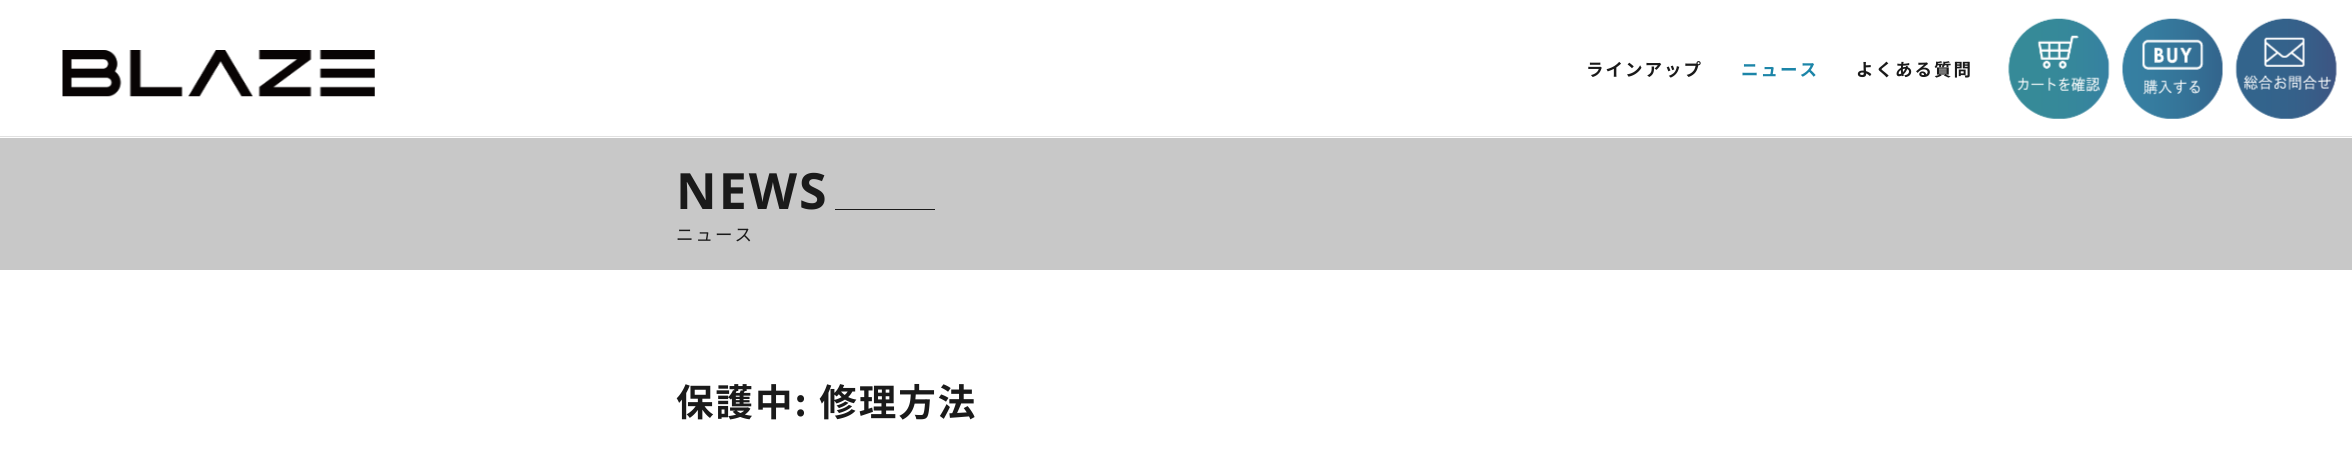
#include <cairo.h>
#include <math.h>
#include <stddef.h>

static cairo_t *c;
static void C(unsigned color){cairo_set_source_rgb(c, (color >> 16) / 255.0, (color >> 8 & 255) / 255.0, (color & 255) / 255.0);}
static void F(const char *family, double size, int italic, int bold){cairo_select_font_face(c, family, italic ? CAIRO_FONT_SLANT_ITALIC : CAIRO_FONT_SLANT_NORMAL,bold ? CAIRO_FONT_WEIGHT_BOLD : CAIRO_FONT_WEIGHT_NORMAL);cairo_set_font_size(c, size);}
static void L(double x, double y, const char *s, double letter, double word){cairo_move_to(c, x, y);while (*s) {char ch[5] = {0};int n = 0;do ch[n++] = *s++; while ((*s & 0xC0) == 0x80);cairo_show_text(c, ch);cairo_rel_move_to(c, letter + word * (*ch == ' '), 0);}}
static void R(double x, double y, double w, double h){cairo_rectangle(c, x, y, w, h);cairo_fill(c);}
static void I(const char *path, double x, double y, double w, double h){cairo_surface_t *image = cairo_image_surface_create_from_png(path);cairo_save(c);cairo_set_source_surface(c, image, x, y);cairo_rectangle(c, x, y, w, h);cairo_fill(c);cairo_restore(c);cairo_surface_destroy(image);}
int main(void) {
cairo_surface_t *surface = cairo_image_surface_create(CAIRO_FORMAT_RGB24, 2352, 463);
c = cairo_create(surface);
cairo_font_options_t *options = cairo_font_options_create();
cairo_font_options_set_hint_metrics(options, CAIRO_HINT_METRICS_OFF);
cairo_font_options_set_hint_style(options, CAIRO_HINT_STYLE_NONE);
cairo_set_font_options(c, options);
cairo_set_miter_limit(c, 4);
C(0xffffff);
cairo_paint(c);
C(0xe1e1e1);
R(0,136,2352,1);
I("1.png",62,50,313,47);
F("Noto Sans JP",17.5,0,1);
C(0x1a1a1a);
L(1586,76,"ラインアップ",2,0);
C(0x1c85a8);
L(1741,76,"ニュース",2,0);
C(0x1a1a1a);
L(1856,76,"よくある質問",2,0);
I("2.png",2008,18,102,101);
I("3.png",2122,18,101,101);
I("4.png",2235,18,102,101);
C(0xc8c8c8);
R(0,138,2352,132);
F("Open Sans",50,0,1);
C(0x1a1a1a);
L(676,209,"NEWS",2,0);
R(835,209,100,1);
F("Noto Sans JP",17.5,0,0);
L(676,241,"ニュース",2,0);
F("Noto Sans JP",37.5,0,1);
L(676,416,"保護中: 修理方法",2,0);
cairo_surface_write_to_png(surface, "o.png");
cairo_font_options_destroy(options);
cairo_destroy(c);
cairo_surface_destroy(surface);
return 0;
}
